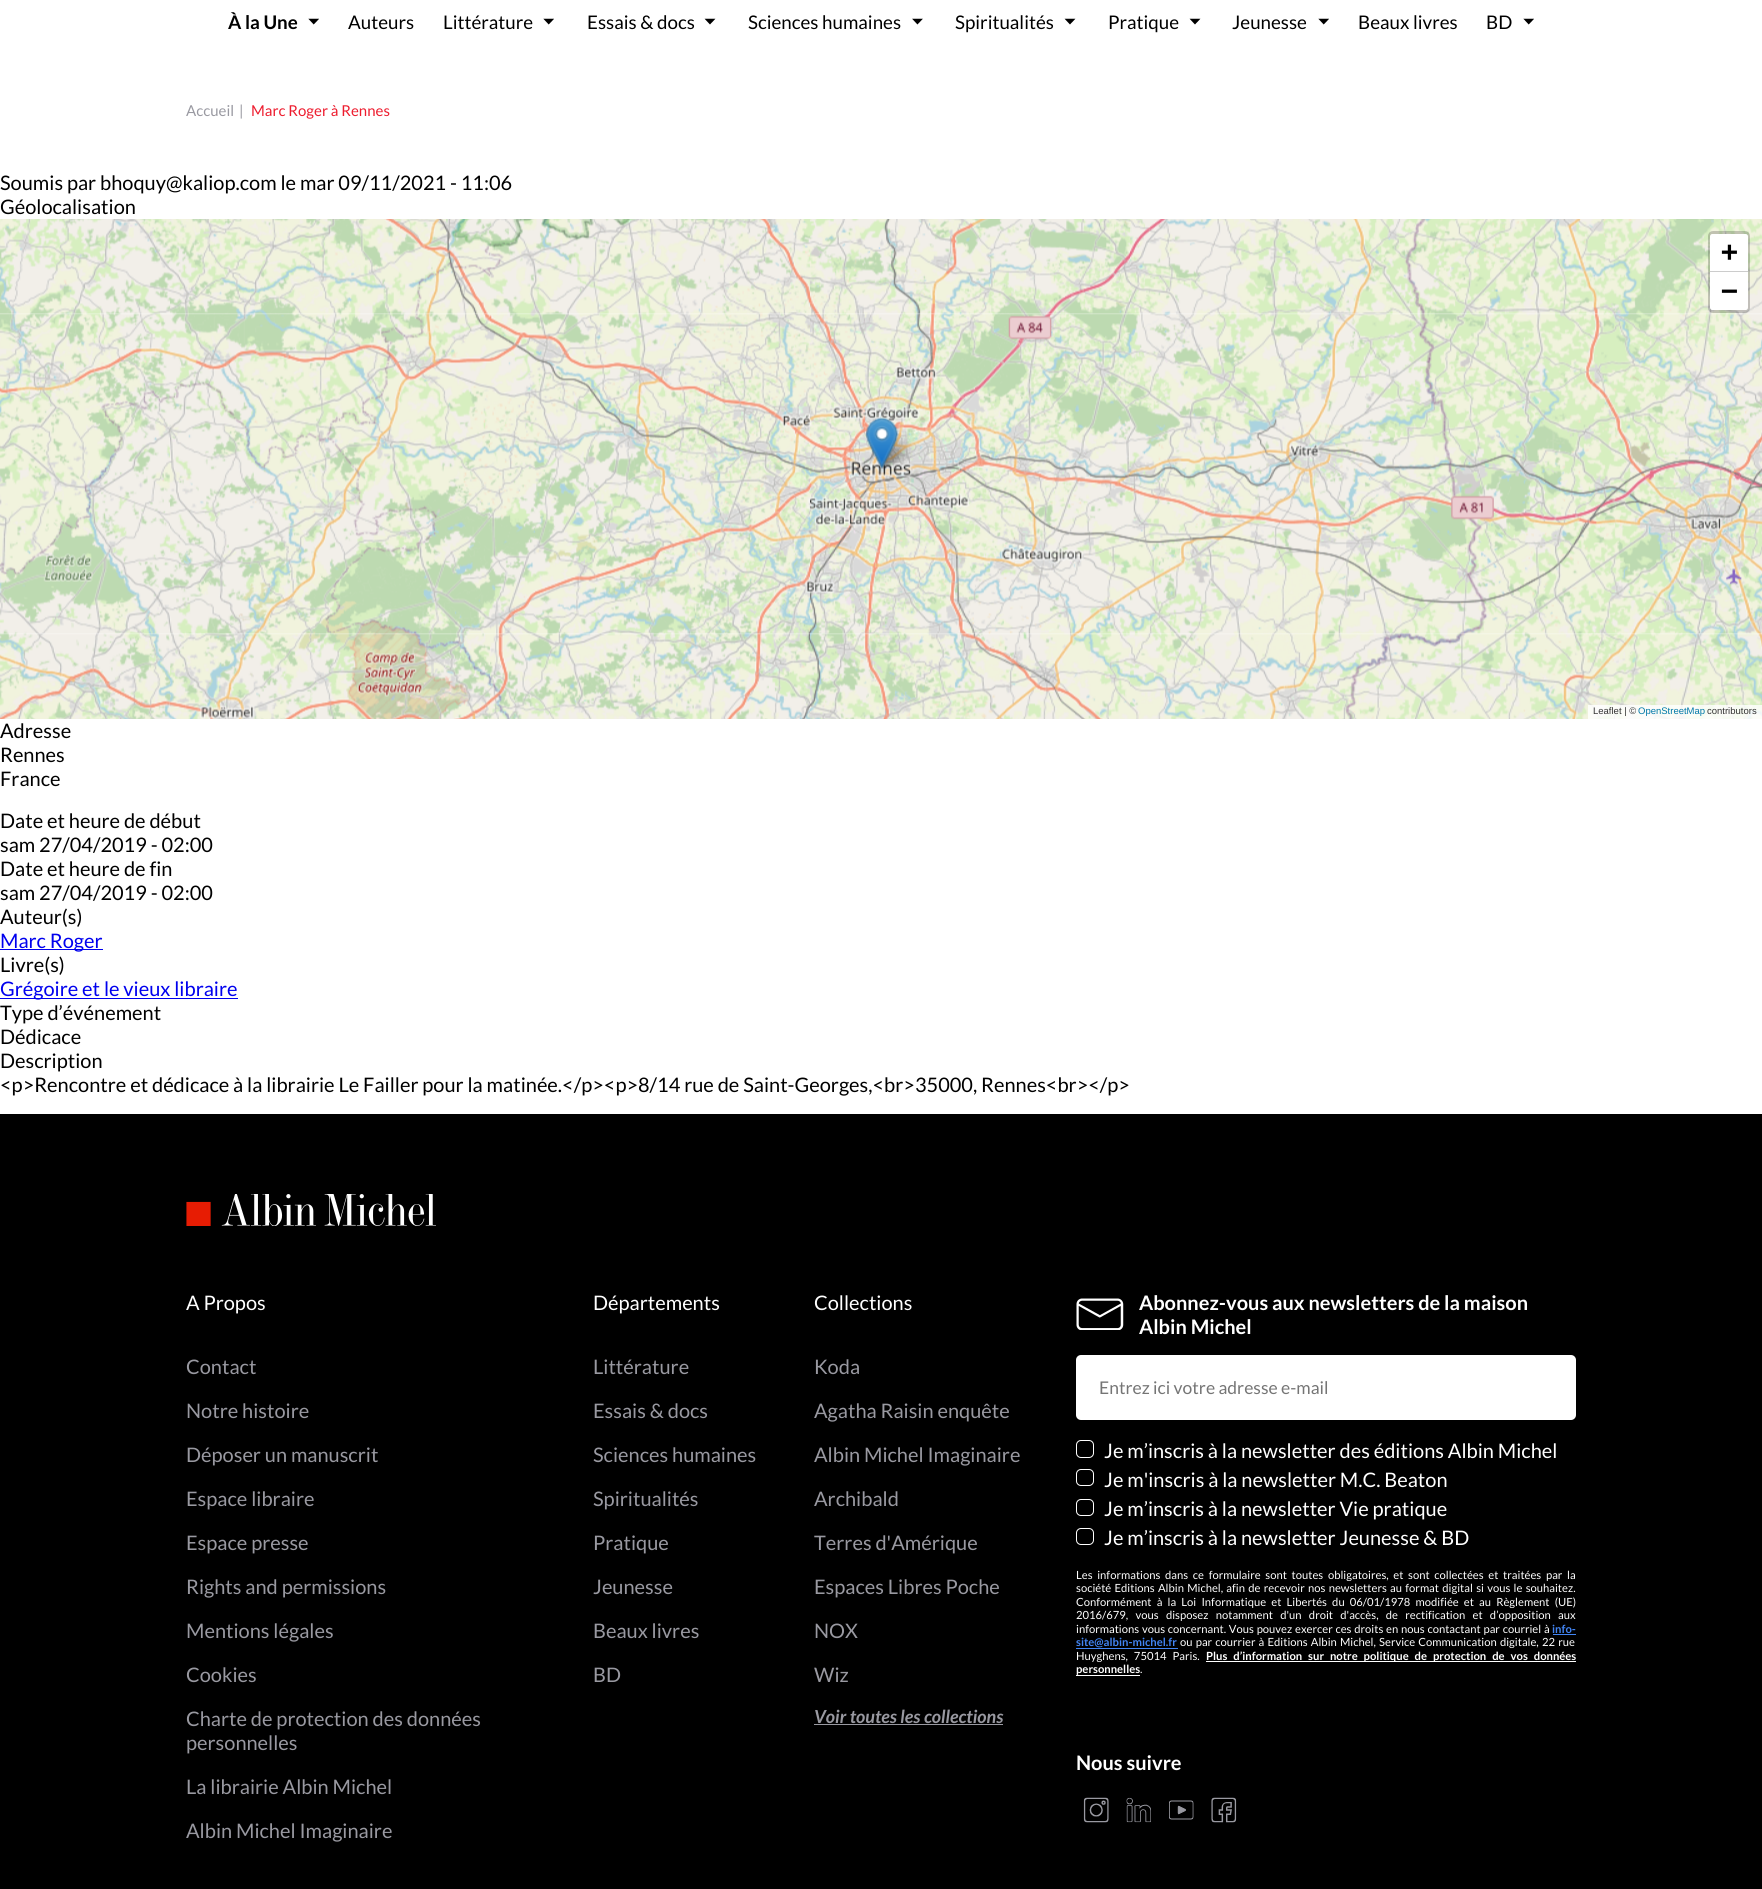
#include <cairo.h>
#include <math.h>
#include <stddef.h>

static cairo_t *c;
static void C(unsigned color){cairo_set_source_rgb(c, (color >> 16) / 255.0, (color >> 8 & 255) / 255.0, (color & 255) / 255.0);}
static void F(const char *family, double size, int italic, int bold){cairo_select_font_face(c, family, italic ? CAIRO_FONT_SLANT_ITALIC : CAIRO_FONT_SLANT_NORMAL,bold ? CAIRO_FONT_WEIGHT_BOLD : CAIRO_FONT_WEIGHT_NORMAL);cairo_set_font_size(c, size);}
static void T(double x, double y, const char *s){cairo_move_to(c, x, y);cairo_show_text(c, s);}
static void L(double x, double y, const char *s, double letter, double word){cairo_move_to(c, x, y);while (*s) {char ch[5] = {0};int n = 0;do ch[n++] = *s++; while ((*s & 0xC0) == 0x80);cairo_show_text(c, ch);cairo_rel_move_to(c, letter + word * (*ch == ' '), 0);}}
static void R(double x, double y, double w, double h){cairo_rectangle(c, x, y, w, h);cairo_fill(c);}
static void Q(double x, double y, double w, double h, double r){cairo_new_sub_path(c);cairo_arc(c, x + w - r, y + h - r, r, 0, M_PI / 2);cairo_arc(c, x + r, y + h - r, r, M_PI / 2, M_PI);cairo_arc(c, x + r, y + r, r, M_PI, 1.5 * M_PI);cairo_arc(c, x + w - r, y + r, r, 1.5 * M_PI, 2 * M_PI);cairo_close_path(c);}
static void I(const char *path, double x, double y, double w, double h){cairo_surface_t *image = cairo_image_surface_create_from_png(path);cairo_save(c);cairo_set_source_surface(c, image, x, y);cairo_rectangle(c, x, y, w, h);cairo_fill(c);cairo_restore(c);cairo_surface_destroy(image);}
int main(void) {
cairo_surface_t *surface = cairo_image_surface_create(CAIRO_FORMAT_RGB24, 1762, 1889);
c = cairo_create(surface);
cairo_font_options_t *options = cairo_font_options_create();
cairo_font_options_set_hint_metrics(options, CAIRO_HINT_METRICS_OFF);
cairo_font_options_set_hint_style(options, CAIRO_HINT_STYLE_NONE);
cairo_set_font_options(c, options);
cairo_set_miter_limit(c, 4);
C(0xffffff);
cairo_paint(c);
F("Lato",18.75,0,1);
C(0x000000);
T(228,29,"À la Une");
I("1.png",308,18,11,7);
F("Lato",18.75,0,0);
T(348,29,"Auteurs");
T(443,29,"Littérature");
I("1.png",543,18,11,7);
T(587,29,"Essais & docs");
I("2.png",704,18,12,7);
T(748,29,"Sciences humaines");
I("3.png",912,18,11,7);
T(955,29,"Spiritualités");
I("2.png",1064,18,12,7);
T(1108,29,"Pratique");
I("2.png",1189,18,12,7);
T(1232,29,"Jeunesse");
I("1.png",1318,18,11,7);
T(1358,29,"Beaux livres");
T(1486,29,"BD");
I("4.png",1523,18,11,7);
F("Lato",15,0,0);
C(0x9999a1);
T(186,116,"Accueil");
T(239,116,"|");
C(0xed1c2e);
T(251,116,"Marc Roger à Rennes");
F("Lato",20,0,0);
C(0x000000);
T(0,190,"Soumis par bhoquy@kaliop.com le mar 09/11/2021 - 11:06");
T(0,214,"Géolocalisation");
I("11.png",0,313,170,322);
I("5.png",0,219,170,96);
I("12.png",170,313,320,322);
I("6.png",170,219,320,96);
I("13.png",490,313,320,322);
I("7.png",490,219,320,96);
I("14.png",810,313,320,322);
I("8.png",810,219,320,96);
I("15.png",1130,313,320,322);
I("9.png",1130,219,320,96);
I("16.png",1450,313,312,322);
I("10.png",1450,219,312,96);
I("17.png",0,633,170,86);
I("18.png",170,633,320,86);
I("19.png",490,633,320,86);
I("20.png",810,633,320,86);
I("21.png",1130,633,320,86);
I("22.png",1450,633,312,86);
I("24.png",877,433,38,36);
I("23.png",866,417,33,53);
Q(1709.5,232.5,39,79,3.5);
cairo_set_source_rgba(c,0,0,0,0.2);
cairo_set_line_width(c,3);
cairo_stroke(c);
C(0xffffff);
cairo_new_path(c);
cairo_move_to(c,1712.5,234);
cairo_line_to(c,1745.5,234);
cairo_curve_to(c,1747,234,1748,235,1748,236.5);
cairo_line_to(c,1748,273);
cairo_line_to(c,1710,273);
cairo_line_to(c,1710,236.5);
cairo_curve_to(c,1710,235,1711,234,1712.5,234);
cairo_close_path(c);
cairo_fill(c);
C(0xcccccc);
R(1710,271,38,1);
F("DejaVu Sans Mono",28,0,1);
C(0x000000);
T(1721,261,"+");
C(0xffffff);
cairo_new_path(c);
cairo_move_to(c,1710,273);
cairo_line_to(c,1748,273);
cairo_line_to(c,1748,307.5);
cairo_curve_to(c,1748,309,1747,310,1745.5,310);
cairo_line_to(c,1712.5,310);
cairo_curve_to(c,1711,310,1710,309,1710,307.5);
cairo_close_path(c);
cairo_fill(c);
C(0x000000);
T(1721,300,"−");
cairo_set_source_rgba(c,1,1,1,0.8);
R(1588,705,174,14);
F("Liberation Sans",9.5,0,0);
C(0x333333);
T(1593,714,"Leaflet | ©");
C(0x0078a8);
T(1638,714,"OpenStreetMap");
C(0x333333);
T(1707,714,"contributors");
F("Lato",20,0,0);
C(0x000000);
T(0,738,"Adresse");
T(0,762,"Rennes");
T(0,786,"France");
T(0,828,"Date et heure de début");
T(0,852,"sam 27/04/2019 - 02:00");
T(0,876,"Date et heure de fin");
T(0,900,"sam 27/04/2019 - 02:00");
T(0,924,"Auteur(s)");
C(0x0000ee);
R(0,949,103,1);
T(0,948,"Marc Roger");
C(0x000000);
T(0,972,"Livre(s)");
C(0x0000ee);
R(0,998,238,1);
T(0,996,"Grégoire et le vieux libraire");
C(0x000000);
T(0,1020,"Type d’événement");
T(0,1044,"Dédicace");
T(0,1068,"Description");
T(0,1092,"<p>Rencontre et dédicace à la librairie Le Failler pour la matinée.</p><p>8/14 rue de Saint-Georges,<br>35000, Rennes<br></p>");
R(0,1114,1762,775);
I("25.png",186,1194,250,32);
C(0xffffff);
T(186,1310,"A Propos");
C(0x9999a1);
T(186,1374,"Contact");
T(186,1418,"Notre histoire");
T(186,1462,"Déposer un manuscrit");
T(186,1506,"Espace libraire");
T(186,1550,"Espace presse");
T(186,1594,"Rights and permissions");
T(186,1638,"Mentions légales");
T(186,1682,"Cookies");
T(186,1726,"Charte de protection des données");
T(186,1750,"personnelles");
T(186,1794,"La librairie Albin Michel");
T(186,1838,"Albin Michel Imaginaire");
C(0xffffff);
T(593,1310,"Départements");
C(0x9999a1);
T(593,1374,"Littérature");
T(593,1418,"Essais & docs");
T(593,1462,"Sciences humaines");
T(593,1506,"Spiritualités");
T(593,1550,"Pratique");
T(593,1594,"Jeunesse");
T(593,1638,"Beaux livres");
T(593,1682,"BD");
C(0xffffff);
T(814,1310,"Collections");
C(0x9999a1);
T(814,1374,"Koda");
T(814,1418,"Agatha Raisin enquête");
T(814,1462,"Albin Michel Imaginaire");
T(814,1506,"Archibald");
T(814,1550,"Terres d'Amérique");
T(814,1594,"Espaces Libres Poche");
T(814,1638,"NOX");
T(814,1682,"Wiz");
F("Lato",18,1,1);
T(814,1723,"Voir toutes les collections");
R(814,1724,189,1);
I("26.png",1076,1298,48,32);
F("Lato",20,0,1);
C(0xffffff);
T(1139,1310,"Abonnez-vous aux newsletters de la maison");
T(1139,1334,"Albin Michel");
Q(1076,1355,500,65,5);
cairo_fill(c);
F("Lato",17.5,0,0);
C(0x757575);
T(1099,1394,"Entrez ici votre adresse e-mail");
Q(1076.5,1440.5,17,17,4.5);
C(0xffffff);
cairo_set_line_width(c,1);
cairo_stroke(c);
F("Lato",20,0,0);
T(1104,1458,"Je m’inscris à la newsletter des éditions Albin Michel");
Q(1076.5,1469.5,17,16,4.5);
cairo_stroke(c);
T(1104,1487,"Je m'inscris à la newsletter M.C. Beaton");
Q(1076.5,1499.5,17,16,4.5);
cairo_stroke(c);
T(1104,1516,"Je m’inscris à la newsletter Vie pratique");
Q(1076.5,1528.5,17,16,4.5);
cairo_stroke(c);
T(1104,1545,"Je m’inscris à la newsletter Jeunesse & BD");
F("Lato",11.25,0,0);
L(1076,1579,"Les informations dans ce formulaire sont toutes obligatoires, et sont collectées et traitées par la",0,2.5);
L(1076,1592,"société Editions Albin Michel, afin de recevoir nos newsletters au format digital si vous le souhaitez.",0,1.1);
L(1076,1606,"Conformément à la Loi Informatique et Libertés du 06/01/1978 modifiée et au Règlement (UE)",0,3);
L(1076,1619,"2016/679, vous disposez notamment d'un droit d'accès, de rectification et d’opposition aux",0,5.1);
L(1076,1633,"informations vous concernant. Vous pouvez exercer ces droits en nous contactant par courriel à",0,.6);
F("Lato",11.25,0,1);
C(0x4285f4);
T(1552,1633,"info-");
R(1553,1634,23,1);
T(1076,1646,"site@albin-michel.fr");
R(1076,1648,102,1);
F("Lato",11.25,0,0);
C(0xffffff);
L(1180,1646,"ou par courrier à Editions Albin Michel, Service Communication digitale, 22 rue",0,1);
L(1076,1660,"Huyghens, 75014 Paris.",0,3.75);
R(1206,1661,370,1);
F("Lato",11.25,0,1);
L(1206,1660,"Plus d’information sur notre politique de protection de vos données",0,3.75);
T(1076,1673,"personnelles");
R(1076,1675,64,1);
F("Lato",11.25,0,0);
T(1140,1673,".");
F("Lato",20,0,1);
T(1076,1770,"Nous suivre");
I("27.png",1083,1797,26,26);
I("28.png",1126,1797,25,26);
I("29.png",1169,1800,25,20);
I("30.png",1211,1797,26,26);
cairo_surface_write_to_png(surface, "o.png");
cairo_font_options_destroy(options);
cairo_destroy(c);
cairo_surface_destroy(surface);
return 0;
}
